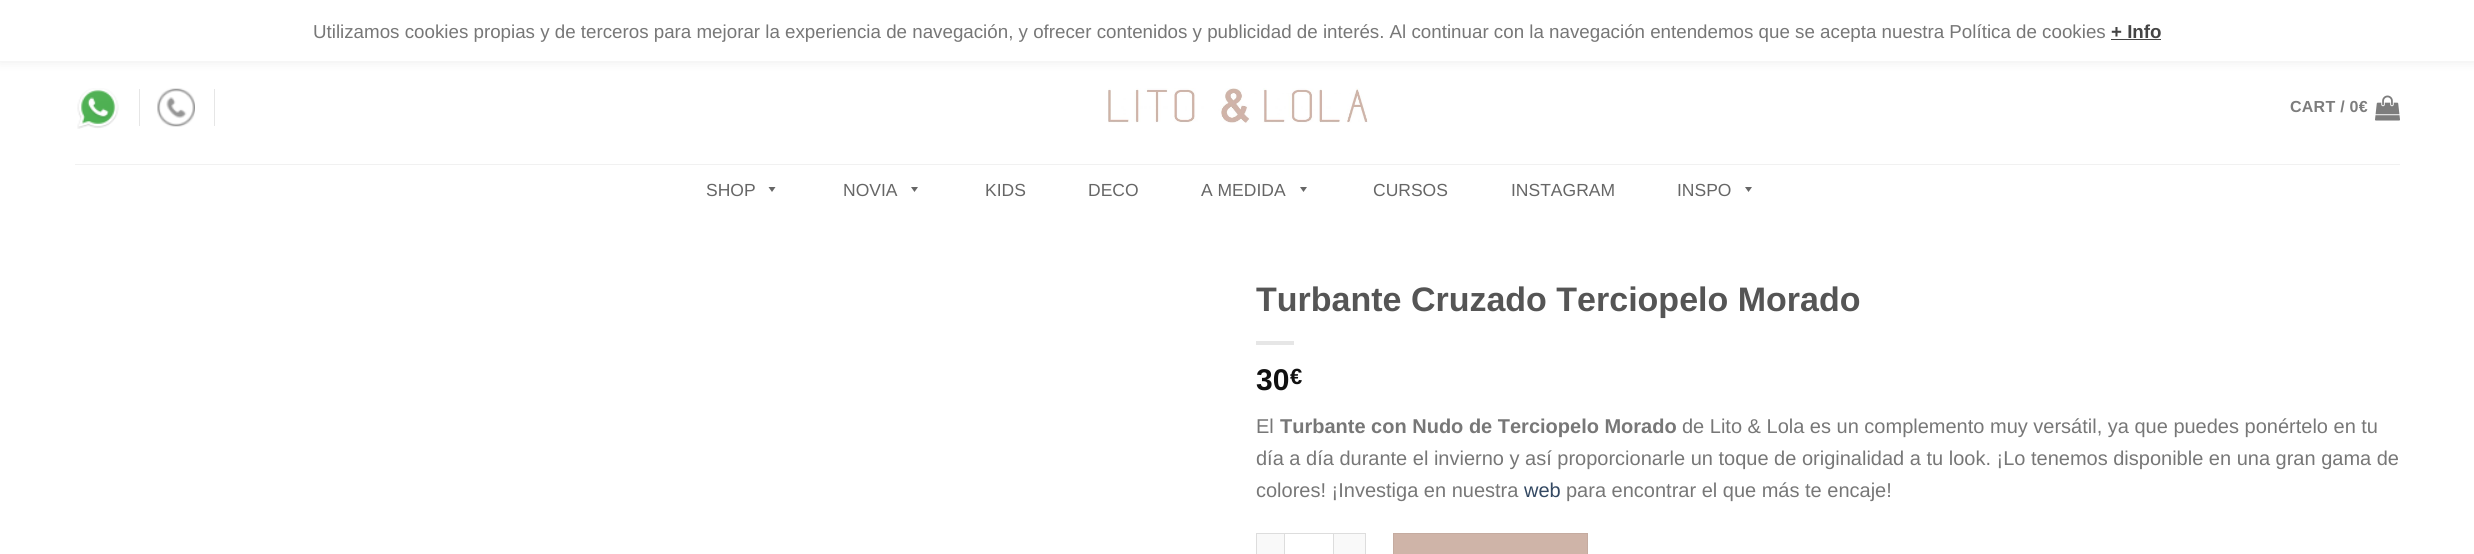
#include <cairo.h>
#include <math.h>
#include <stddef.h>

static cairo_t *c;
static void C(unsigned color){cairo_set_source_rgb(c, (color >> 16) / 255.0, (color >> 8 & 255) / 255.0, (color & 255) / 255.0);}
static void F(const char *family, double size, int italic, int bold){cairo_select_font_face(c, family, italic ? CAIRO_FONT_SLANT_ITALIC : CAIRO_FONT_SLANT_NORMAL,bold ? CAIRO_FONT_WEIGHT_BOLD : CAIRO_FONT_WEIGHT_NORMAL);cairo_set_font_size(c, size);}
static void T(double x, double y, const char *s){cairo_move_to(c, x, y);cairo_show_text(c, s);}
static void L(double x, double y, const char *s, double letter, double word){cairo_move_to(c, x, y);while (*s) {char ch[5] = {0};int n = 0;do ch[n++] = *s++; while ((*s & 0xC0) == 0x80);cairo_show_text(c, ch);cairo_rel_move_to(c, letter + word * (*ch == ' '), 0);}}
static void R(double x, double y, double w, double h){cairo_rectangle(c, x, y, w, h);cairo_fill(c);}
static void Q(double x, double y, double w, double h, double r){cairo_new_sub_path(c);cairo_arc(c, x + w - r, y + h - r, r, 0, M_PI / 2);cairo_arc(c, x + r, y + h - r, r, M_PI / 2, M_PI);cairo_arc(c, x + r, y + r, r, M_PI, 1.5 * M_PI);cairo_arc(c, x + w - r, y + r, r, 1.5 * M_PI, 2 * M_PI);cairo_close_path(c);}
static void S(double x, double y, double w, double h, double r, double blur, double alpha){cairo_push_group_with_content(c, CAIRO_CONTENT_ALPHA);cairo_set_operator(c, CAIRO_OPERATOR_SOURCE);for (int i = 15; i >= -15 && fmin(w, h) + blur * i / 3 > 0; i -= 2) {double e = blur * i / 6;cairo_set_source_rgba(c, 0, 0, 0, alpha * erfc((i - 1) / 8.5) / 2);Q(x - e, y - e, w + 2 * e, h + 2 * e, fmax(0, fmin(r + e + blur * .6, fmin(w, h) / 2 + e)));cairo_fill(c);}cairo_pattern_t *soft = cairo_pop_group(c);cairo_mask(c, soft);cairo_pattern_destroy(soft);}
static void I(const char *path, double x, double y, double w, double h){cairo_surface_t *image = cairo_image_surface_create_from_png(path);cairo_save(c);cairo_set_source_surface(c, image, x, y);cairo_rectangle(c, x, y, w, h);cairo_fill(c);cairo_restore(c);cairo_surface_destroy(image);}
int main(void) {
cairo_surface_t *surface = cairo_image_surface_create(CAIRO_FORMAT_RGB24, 2474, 554);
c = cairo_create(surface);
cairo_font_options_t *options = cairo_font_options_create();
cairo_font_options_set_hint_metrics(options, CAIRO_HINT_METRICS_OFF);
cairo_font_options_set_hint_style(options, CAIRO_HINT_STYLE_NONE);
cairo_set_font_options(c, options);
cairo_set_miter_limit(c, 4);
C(0xffffff);
cairo_paint(c);
C(0xacabab);
S(0,-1,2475,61,0,6,.3);
C(0xffffff);
R(0,0,2474,61);
F("Liberation Sans",18.75,0,0);
C(0x777777);
T(313,38,"Utilizamos cookies propias y de terceros para mejorar la experiencia de navegación, y ofrecer contenidos y publicidad de interés. Al continuar con la navegación entendemos que se acepta nuestra Política de cookies");
F("Liberation Sans",18.75,0,1);
C(0x444444);
T(2111,38,"+ Info");
R(2111,39,50,1);
I("1.png",77,88,42,41);
C(0xe6e6e6);
R(139,89,1,37);
I("2.png",157,88,38,39);
R(214,89,1,37);
I("3.png",1108,88,260,35);
F("Liberation Sans",16,0,1);
C(0x7d7d7d);
L(2290,112,"CART / 0€",.25,0);
I("4.png",2375,95,25,26);
C(0xf1f1f1);
R(75,164,2325,1);
F("Liberation Sans",17.5,0,0);
C(0x666666);
T(706,196,"SHOP");
cairo_new_path(c);
cairo_move_to(c,775.5,187);
cairo_line_to(c,772,192);
cairo_line_to(c,768.5,187);
cairo_close_path(c);
cairo_fill(c);
T(843,196,"NOVIA");
cairo_new_path(c);
cairo_move_to(c,918,187);
cairo_line_to(c,914.5,192);
cairo_line_to(c,911,187);
cairo_close_path(c);
cairo_fill(c);
T(985,196,"KIDS");
T(1088,196,"DECO");
T(1201,196,"A MEDIDA");
cairo_new_path(c);
cairo_move_to(c,1307,187);
cairo_line_to(c,1303.5,192);
cairo_line_to(c,1300,187);
cairo_close_path(c);
cairo_fill(c);
T(1373,196,"CURSOS");
T(1511,196,"INSTAGRAM");
T(1677,196,"INSPO");
cairo_new_path(c);
cairo_move_to(c,1752,187);
cairo_line_to(c,1748.5,192);
cairo_line_to(c,1745,187);
cairo_close_path(c);
cairo_fill(c);
F("Liberation Sans",34,0,1);
C(0x555555);
T(1256,311,"Turbante Cruzado Terciopelo Morado");
C(0xe6e6e6);
R(1256,341,38,4);
F("Liberation Sans",30,0,1);
C(0x111111);
T(1256,390,"30");
F("Liberation Sans",22,0,1);
T(1290,384,"€");
F("Liberation Sans",20,0,0);
C(0x777777);
T(1256,433,"El");
F("Liberation Sans",20,0,1);
T(1280,433,"Turbante con Nudo de Terciopelo Morado");
F("Liberation Sans",20,0,0);
T(1682,433,"de Lito & Lola es un complemento muy versátil, ya que puedes ponértelo en tu");
T(1256,465,"día a día durante el invierno y así proporcionarle un toque de originalidad a tu look. ¡Lo tenemos disponible en una gran gama de");
T(1256,497,"colores! ¡Investiga en nuestra");
C(0x334862);
T(1524,497,"web");
C(0x777777);
T(1566,497,"para encontrar el que más te encaje!");
C(0xf9f9f9);
R(1257,534,27,20);
C(0xdddddd);
R(1256,533,28,1);
R(1256,533,1,21);
cairo_rectangle(c,1284.5,533.5,49,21);
cairo_set_line_width(c,1);
cairo_stroke(c);
C(0xf9f9f9);
R(1334,534,31,20);
C(0xdddddd);
R(1334,533,32,1);
R(1365,533,1,21);
C(0xcfb4a8);
cairo_rectangle(c,1393.5,533.5,194,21);
cairo_fill_preserve(c);
C(0xc5aba0);
cairo_stroke(c);
cairo_surface_write_to_png(surface, "o.png");
cairo_font_options_destroy(options);
cairo_destroy(c);
cairo_surface_destroy(surface);
return 0;
}
